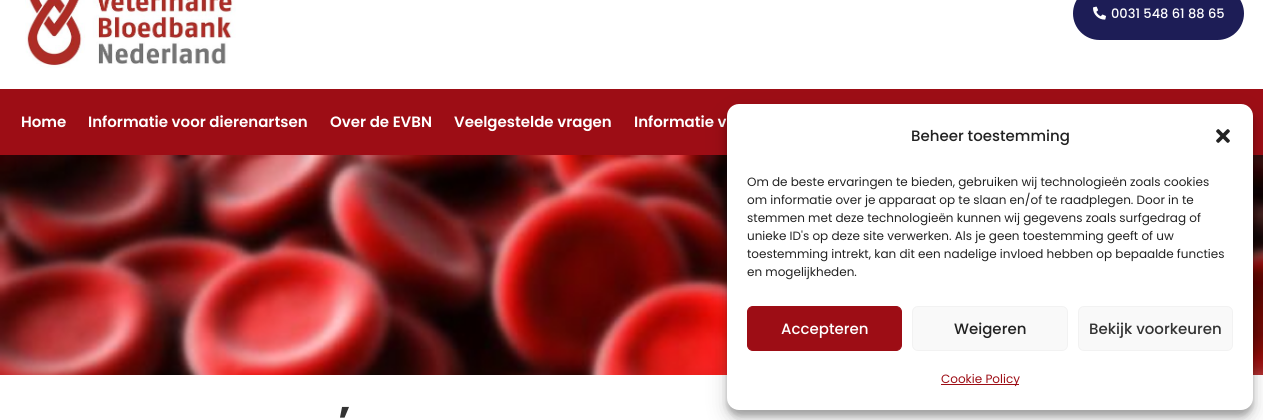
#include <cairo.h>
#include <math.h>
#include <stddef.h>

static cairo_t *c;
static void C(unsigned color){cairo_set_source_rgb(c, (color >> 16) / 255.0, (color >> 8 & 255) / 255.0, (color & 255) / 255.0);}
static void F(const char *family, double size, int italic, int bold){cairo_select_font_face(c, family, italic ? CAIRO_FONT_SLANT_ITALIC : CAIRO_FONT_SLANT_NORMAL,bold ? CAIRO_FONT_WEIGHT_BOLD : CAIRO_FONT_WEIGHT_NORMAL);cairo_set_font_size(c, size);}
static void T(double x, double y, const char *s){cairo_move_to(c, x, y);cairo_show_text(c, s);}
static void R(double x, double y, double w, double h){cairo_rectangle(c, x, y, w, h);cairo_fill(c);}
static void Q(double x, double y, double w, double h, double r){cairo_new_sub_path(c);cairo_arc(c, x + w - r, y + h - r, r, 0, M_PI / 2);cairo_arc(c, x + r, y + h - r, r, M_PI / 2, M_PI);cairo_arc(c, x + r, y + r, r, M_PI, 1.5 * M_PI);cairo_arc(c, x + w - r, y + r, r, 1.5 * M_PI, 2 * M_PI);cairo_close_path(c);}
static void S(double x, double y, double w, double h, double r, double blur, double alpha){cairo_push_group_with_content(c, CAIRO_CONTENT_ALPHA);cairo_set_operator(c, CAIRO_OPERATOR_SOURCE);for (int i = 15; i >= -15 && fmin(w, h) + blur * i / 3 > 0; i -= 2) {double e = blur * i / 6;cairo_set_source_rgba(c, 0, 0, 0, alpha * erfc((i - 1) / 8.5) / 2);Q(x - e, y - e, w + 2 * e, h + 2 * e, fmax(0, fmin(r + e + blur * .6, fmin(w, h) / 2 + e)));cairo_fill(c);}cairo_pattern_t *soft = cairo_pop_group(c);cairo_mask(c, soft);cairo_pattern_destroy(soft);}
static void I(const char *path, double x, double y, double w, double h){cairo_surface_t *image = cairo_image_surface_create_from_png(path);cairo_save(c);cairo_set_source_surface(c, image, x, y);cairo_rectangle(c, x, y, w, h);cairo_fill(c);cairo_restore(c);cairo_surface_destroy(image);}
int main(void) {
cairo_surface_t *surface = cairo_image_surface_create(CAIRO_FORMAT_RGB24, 1263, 420);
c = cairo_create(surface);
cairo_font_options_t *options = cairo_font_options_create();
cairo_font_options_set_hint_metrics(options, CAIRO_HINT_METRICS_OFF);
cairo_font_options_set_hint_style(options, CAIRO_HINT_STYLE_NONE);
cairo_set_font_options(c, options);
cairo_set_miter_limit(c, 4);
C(0xffffff);
cairo_paint(c);
I("1.png",25,0,211,68);
C(0x1d1d56);
Q(1073,-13,171,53,26.5);
cairo_fill(c);
I("2.png",1093,6,13,14);
F("Poppins Medium",13,0,0);
C(0xffffff);
T(1111,18,"0031 548 61 88 65");
C(0x9d0d15);
R(0,89,1263,66);
F("Poppins SemiBold",15,0,0);
C(0xffffff);
T(21,127,"Home");
T(88,127,"Informatie voor dierenartsen");
T(330,127,"Over de EVBN");
T(454,127,"Veelgestelde vragen");
T(634,127,"Informatie v");
I("3.png",0,155,1263,220);
C(0x000000);
S(727,110,526,306,12,3,.23);
S(727,114,526,306,12,10,.19);
C(0xffffff);
Q(727,104,526,306,12);
cairo_fill(c);
F("Poppins Medium",15,0,0);
C(0x222222);
T(911,141,"Beheer toestemming");
I("4.png",1216,129,14,14);
F("Poppins",12,0,0);
T(747,186,"Om de beste ervaringen te bieden, gebruiken wij technologieën zoals cookies");
T(747,204,"om informatie over je apparaat op te slaan en/of te raadplegen. Door in te");
T(747,222,"stemmen met deze technologieën kunnen wij gegevens zoals surfgedrag of");
T(747,240,"unieke ID's op deze site verwerken. Als je geen toestemming geeft of uw");
T(747,258,"toestemming intrekt, kan dit een nadelige invloed hebben op bepaalde functies");
T(747,276,"en mogelijkheden.");
C(0x9d0d15);
Q(747.5,306.5,154,44,5.5);
cairo_fill_preserve(c);
cairo_set_line_width(c,1);
cairo_stroke(c);
F("Poppins Medium",15,0,0);
C(0xffffff);
T(781,334,"Accepteren");
C(0xf9f9f9);
Q(912.5,306.5,155,44,5.5);
cairo_fill_preserve(c);
C(0xf2f2f2);
cairo_stroke(c);
C(0x222222);
T(954,334,"Weigeren");
C(0xf9f9f9);
Q(1078.5,306.5,154,44,5.5);
cairo_fill_preserve(c);
C(0xf2f2f2);
cairo_stroke(c);
C(0x333333);
T(1089,334,"Bekijk voorkeuren");
C(0x9d0d15);
R(941,384,78,1);
F("Poppins",12,0,0);
T(941,383,"Cookie Policy");
F("Poppins",40,0,1);
C(0x333333);
T(338,435,"’");
cairo_surface_write_to_png(surface, "o.png");
cairo_font_options_destroy(options);
cairo_destroy(c);
cairo_surface_destroy(surface);
return 0;
}
